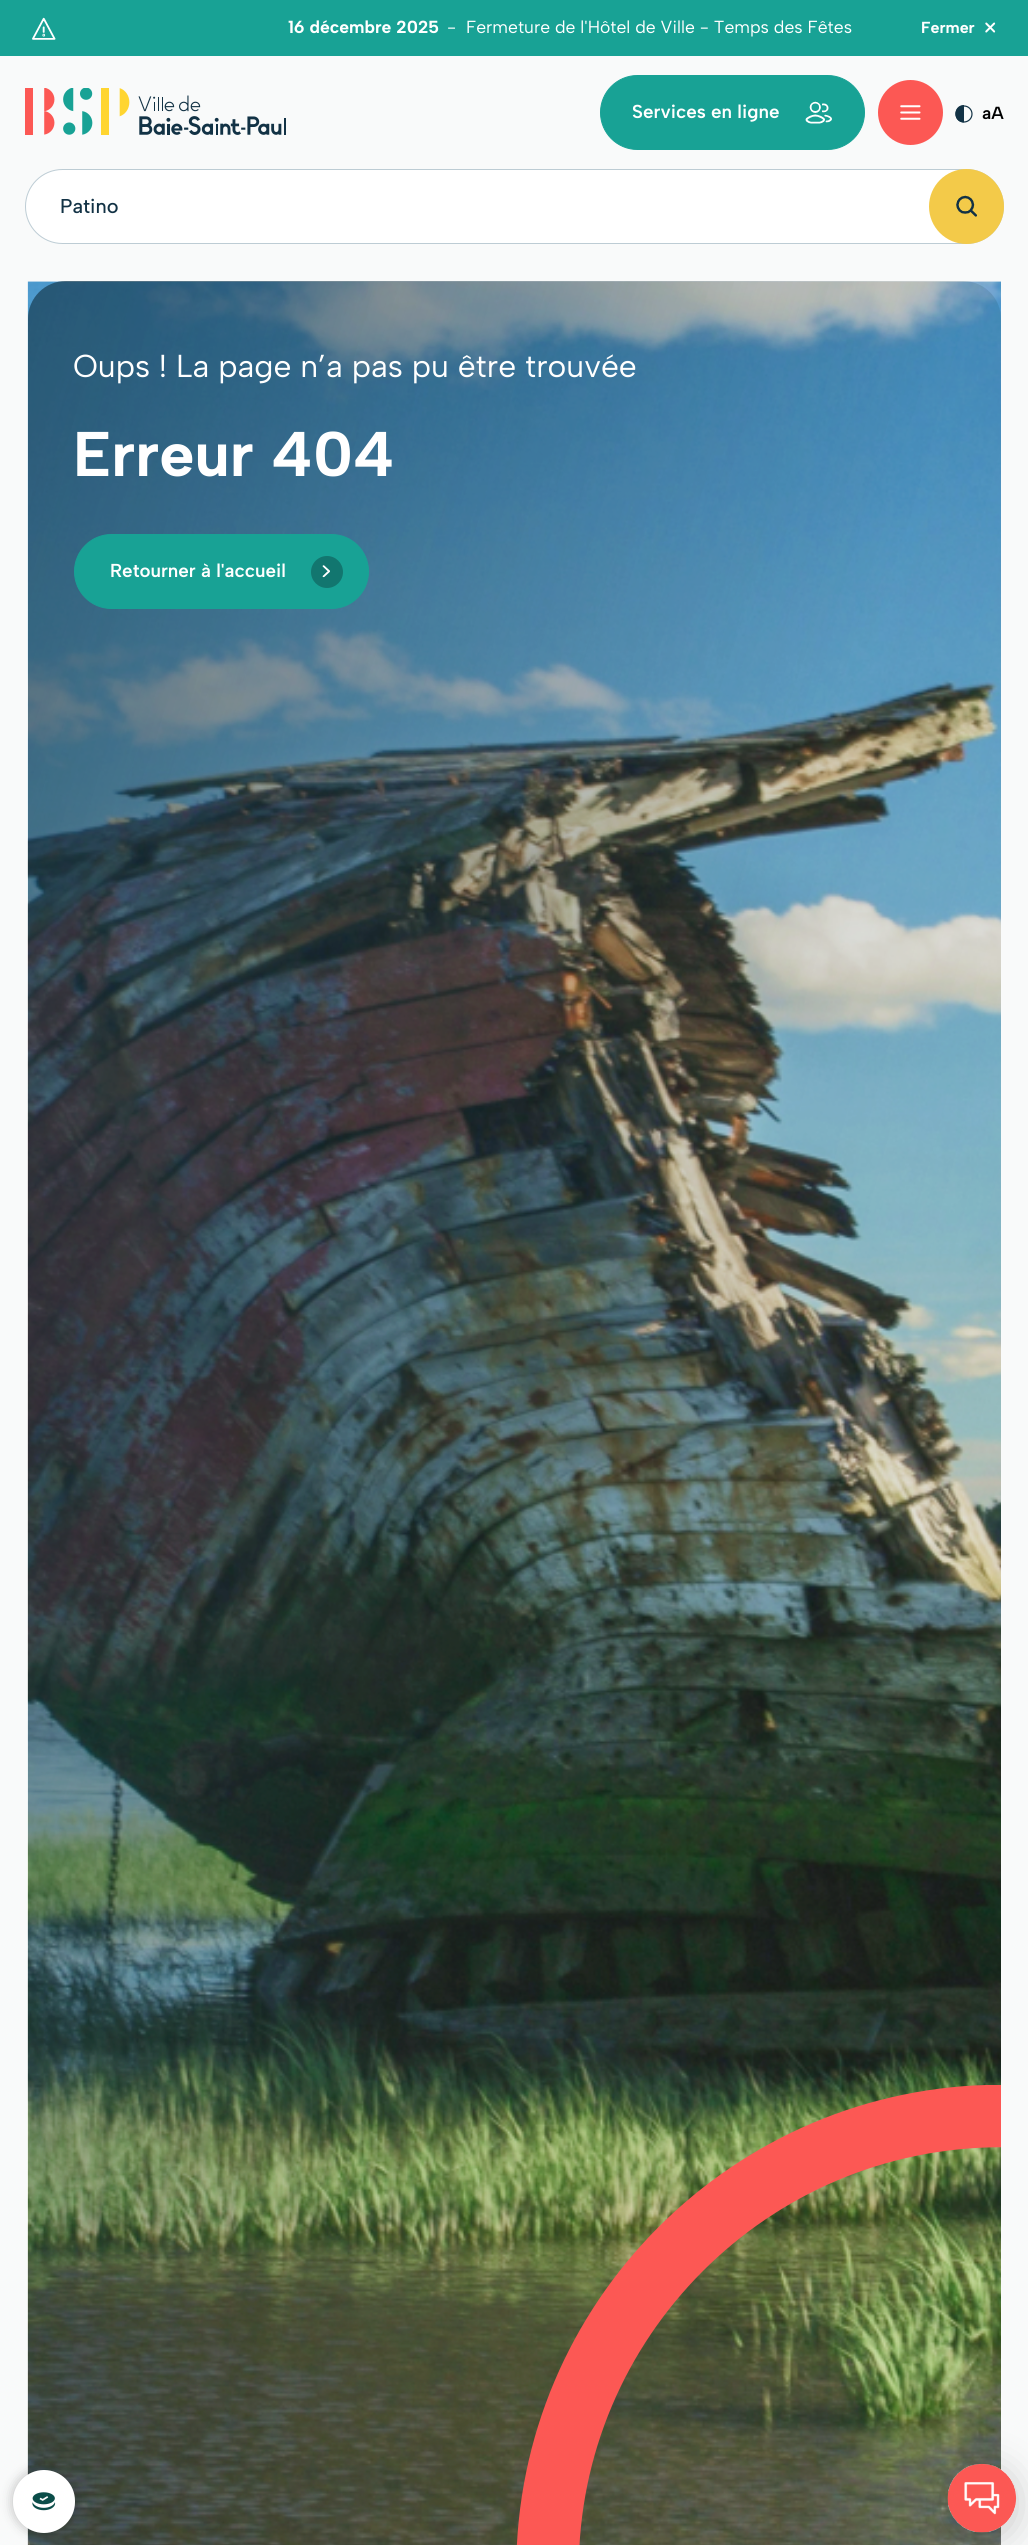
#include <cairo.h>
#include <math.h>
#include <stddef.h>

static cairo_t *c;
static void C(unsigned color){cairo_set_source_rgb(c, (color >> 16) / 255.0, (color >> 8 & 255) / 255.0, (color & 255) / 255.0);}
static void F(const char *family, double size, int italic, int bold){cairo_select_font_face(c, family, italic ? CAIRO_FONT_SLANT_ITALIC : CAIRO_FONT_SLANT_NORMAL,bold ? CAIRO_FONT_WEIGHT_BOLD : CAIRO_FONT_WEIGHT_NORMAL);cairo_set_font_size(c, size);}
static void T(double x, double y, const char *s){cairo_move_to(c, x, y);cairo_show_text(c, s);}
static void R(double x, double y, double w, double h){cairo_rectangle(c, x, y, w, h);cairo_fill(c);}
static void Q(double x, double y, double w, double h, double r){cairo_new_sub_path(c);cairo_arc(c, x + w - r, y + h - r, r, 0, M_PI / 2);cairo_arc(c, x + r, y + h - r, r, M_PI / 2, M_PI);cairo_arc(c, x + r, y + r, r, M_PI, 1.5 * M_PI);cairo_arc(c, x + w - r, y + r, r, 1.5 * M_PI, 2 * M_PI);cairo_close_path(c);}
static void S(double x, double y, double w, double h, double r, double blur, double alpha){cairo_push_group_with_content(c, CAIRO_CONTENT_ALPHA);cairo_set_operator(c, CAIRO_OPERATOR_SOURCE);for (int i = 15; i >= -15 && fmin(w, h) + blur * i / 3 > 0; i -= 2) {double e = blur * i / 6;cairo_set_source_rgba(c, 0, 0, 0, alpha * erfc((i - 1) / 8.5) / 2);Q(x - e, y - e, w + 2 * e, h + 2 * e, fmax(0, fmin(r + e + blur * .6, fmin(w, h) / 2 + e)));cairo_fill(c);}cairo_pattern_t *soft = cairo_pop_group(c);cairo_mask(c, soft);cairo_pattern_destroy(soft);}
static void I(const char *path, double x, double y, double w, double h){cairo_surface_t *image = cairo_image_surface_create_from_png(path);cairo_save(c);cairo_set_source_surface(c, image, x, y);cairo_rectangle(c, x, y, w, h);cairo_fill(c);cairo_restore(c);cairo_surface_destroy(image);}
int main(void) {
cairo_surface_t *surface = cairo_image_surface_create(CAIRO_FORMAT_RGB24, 1028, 2545);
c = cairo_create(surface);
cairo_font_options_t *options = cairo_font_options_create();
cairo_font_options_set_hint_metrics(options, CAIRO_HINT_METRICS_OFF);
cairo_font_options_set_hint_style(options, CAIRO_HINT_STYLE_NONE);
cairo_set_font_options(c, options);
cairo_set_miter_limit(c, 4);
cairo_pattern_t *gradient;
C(0xf9fafa);
cairo_paint(c);
C(0x18a295);
R(0,0,1028,56);
I("1.png",32,17,24,23);
F("Albert Sans",17.5,0,1);
C(0xffffff);
T(288,33,"16 décembre 2025");
F("Albert Sans",17.5,0,0);
T(447,33,"-  Fermeture de l'Hôtel de Ville - Temps des Fêtes");
F("Albert Sans",16,0,1);
T(921,33,"Fermer");
I("2.png",985,22,11,11);
I("3.png",25,88,261,47);
C(0x18a295);
Q(600.5,75.5,264,74,37);
cairo_fill_preserve(c);
cairo_set_line_width(c,1);
cairo_stroke(c);
F("Albert Sans SemiBold",18.75,0,0);
C(0xffffff);
T(632,118,"Services en ligne");
I("4.png",805,101,27,23);
C(0xfc5854);
cairo_arc(c,910.5,112.5,32.5,0,2 * M_PI);
cairo_fill(c);
I("5.png",900,105,21,15);
C(0x123245);
cairo_new_path(c);
cairo_move_to(c,964,122.5);
cairo_curve_to(c,952.5,122.5,952.5,105,964,105);
cairo_close_path(c);
cairo_fill(c);
cairo_arc(c,964,114,8,0,2 * M_PI);
cairo_set_line_width(c,1.2);
cairo_stroke(c);
F("Albert Sans SemiBold",17.5,0,0);
C(0x000000);
T(982,119,"aA");
C(0xffffff);
Q(25.5,169.5,978,74,37);
cairo_fill_preserve(c);
C(0xbdccd4);
cairo_set_line_width(c,1);
cairo_stroke(c);
F("Albert Sans Medium",20,0,0);
C(0x123245);
T(60,213,"Patino");
C(0xf3ca49);
cairo_new_path(c);
cairo_arc(c,966.5,206.5,37.5,0,2 * M_PI);
cairo_fill(c);
I("6.png",956,195,21,22);
I("7.png",27,281,974,2264);
gradient = cairo_pattern_create_linear(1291,1678,-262,1173);
cairo_pattern_add_color_stop_rgba(gradient,.44,0.071,0.196,0.271,0);
cairo_pattern_add_color_stop_rgba(gradient,.99,0.071,0.196,0.271,.5);
cairo_set_source(c,gradient);
cairo_pattern_destroy(gradient);
Q(28,281,973,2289,38);
cairo_fill(c);
gradient = cairo_pattern_create_linear(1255,1624,-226,1227);
cairo_pattern_add_color_stop_rgba(gradient,.2,0.071,0.196,0.271,0);
cairo_pattern_add_color_stop_rgba(gradient,.97,0.071,0.196,0.271,.2);
cairo_set_source(c,gradient);
cairo_pattern_destroy(gradient);
Q(28,281,973,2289,38);
cairo_fill(c);
cairo_set_source_rgba(c,0.071,0.196,0.271,0.1);
Q(28,281,973,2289,38);
cairo_fill(c);
F("Albert Sans",31.75,0,0);
C(0xffffff);
T(73,377,"Oups ! La page n’a pas pu être trouvée");
F("Albert Sans",63,0,1);
T(73,476,"Erreur 404");
C(0x18a295);
Q(74.5,534.5,294,74,37);
cairo_fill_preserve(c);
cairo_stroke(c);
F("Albert Sans SemiBold",18.75,0,0);
C(0xffffff);
T(110,577,"Retourner à l'accueil");
C(0x12766f);
cairo_new_path(c);
cairo_arc(c,327,572,16,0,2 * M_PI);
cairo_fill(c);
I("8.png",322,565,8,13);
cairo_save(c);
cairo_rectangle(c,516,2085,485,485);
cairo_clip(c);
cairo_new_path(c);
cairo_move_to(c,1001,2116);
cairo_curve_to(c,751,2116,547.5,2320,547.5,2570);
C(0xfc5854);
cairo_set_line_width(c,62.5);
cairo_stroke(c);
cairo_restore(c);
C(0x000000);
S(13,2470,62,63,31,6,.25);
C(0xffffff);
Q(13,2470,62,63,31);
cairo_fill(c);
I("9.png",32,2492,24,19);
C(0x000000);
S(948,2469,68,69,34,19,.2);
I("10.png",947,2463,70,70);
cairo_surface_write_to_png(surface, "o.png");
cairo_font_options_destroy(options);
cairo_destroy(c);
cairo_surface_destroy(surface);
return 0;
}
